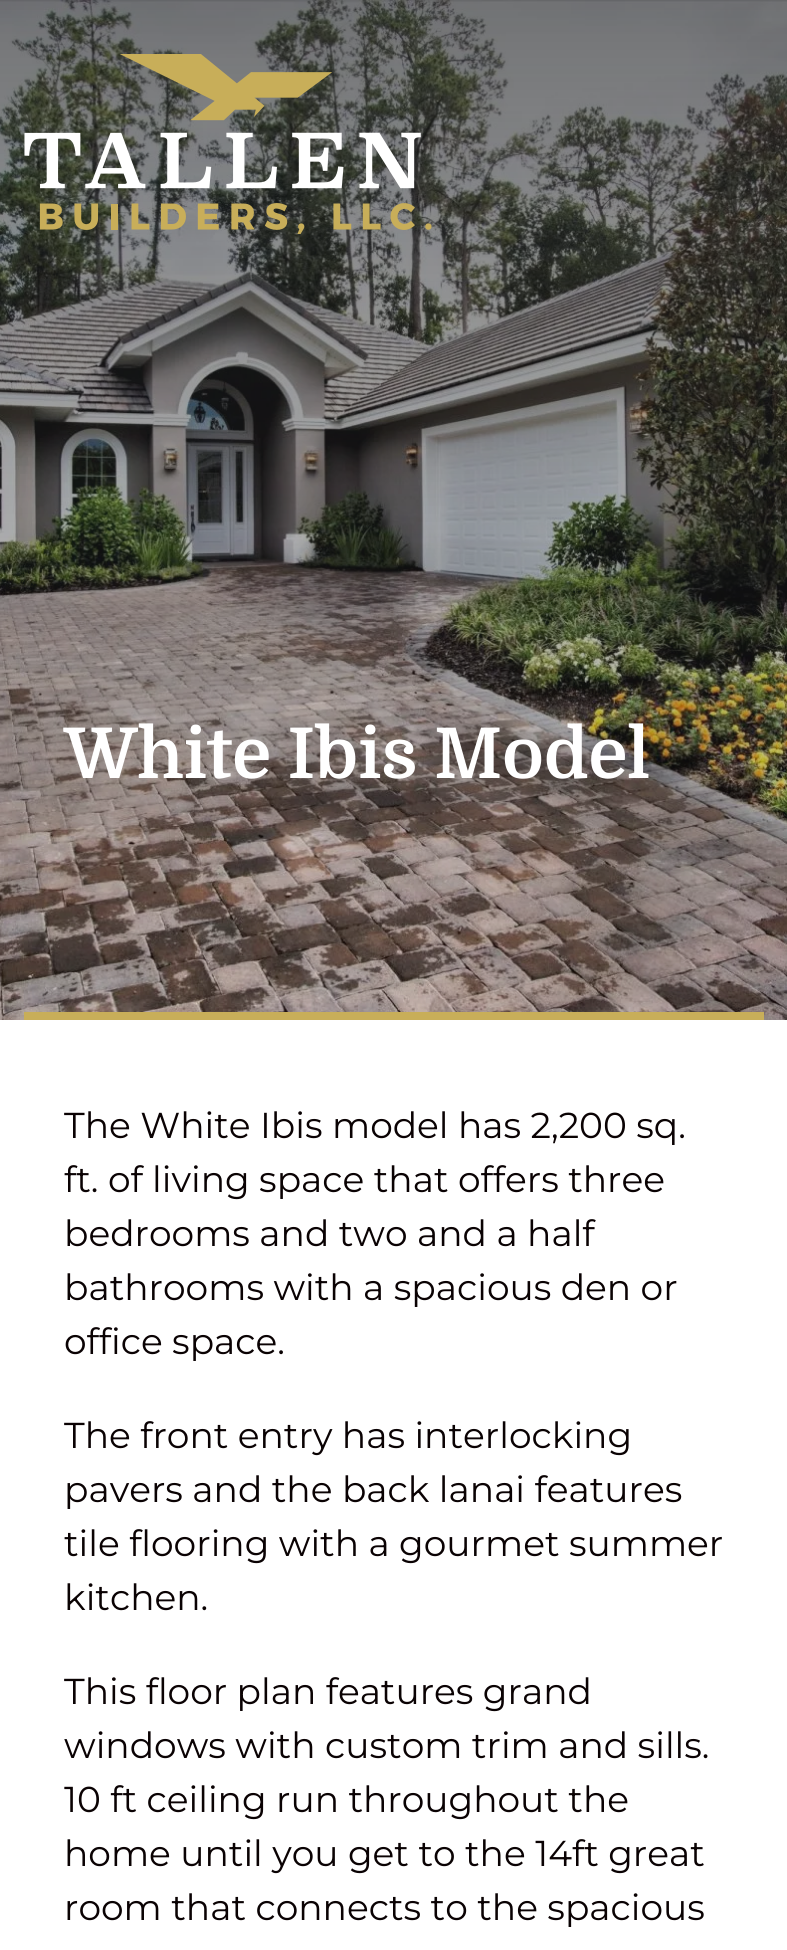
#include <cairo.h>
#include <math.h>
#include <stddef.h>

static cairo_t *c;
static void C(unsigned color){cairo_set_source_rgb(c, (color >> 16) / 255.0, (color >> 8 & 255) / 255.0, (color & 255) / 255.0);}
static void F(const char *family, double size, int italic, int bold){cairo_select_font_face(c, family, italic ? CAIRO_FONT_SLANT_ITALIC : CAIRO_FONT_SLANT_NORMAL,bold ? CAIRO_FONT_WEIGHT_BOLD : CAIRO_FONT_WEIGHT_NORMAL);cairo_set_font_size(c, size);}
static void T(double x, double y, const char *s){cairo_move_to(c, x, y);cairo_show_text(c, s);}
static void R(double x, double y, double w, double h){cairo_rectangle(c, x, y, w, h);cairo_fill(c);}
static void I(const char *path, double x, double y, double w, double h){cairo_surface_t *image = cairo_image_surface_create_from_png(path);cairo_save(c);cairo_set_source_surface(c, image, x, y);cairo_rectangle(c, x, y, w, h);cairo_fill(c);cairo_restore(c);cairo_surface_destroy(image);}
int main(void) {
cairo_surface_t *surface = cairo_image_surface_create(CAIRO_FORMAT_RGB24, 787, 1950);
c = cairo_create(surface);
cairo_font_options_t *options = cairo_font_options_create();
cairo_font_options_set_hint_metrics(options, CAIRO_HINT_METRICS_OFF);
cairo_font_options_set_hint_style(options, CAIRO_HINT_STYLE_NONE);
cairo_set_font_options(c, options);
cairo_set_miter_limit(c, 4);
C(0xffffff);
cairo_paint(c);
I("2.png",0,0,787,1020);
I("1.png",24,54,408,180);
C(0xc8ae59);
R(24,1012,740,8);
F("Domine",70,0,1);
C(0xffffff);
T(64,778,"White Ibis Model");
F("Montserrat Thin",36,0,0);
C(0x0a0203);
T(64,1138,"The White Ibis model has 2,200 sq.");
T(64,1192,"ft. of living space that offers three");
T(64,1246,"bedrooms and two and a half");
T(64,1300,"bathrooms with a spacious den or");
T(64,1354,"office space.");
T(64,1448,"The front entry has interlocking");
T(64,1502,"pavers and the back lanai features");
T(64,1556,"tile flooring with a gourmet summer");
T(64,1610,"kitchen.");
T(64,1704,"This floor plan features grand");
T(64,1758,"windows with custom trim and sills.");
T(64,1812,"10 ft ceiling run throughout the");
T(64,1866,"home until you get to the 14ft great");
T(64,1920,"room that connects to the spacious");
cairo_surface_write_to_png(surface, "o.png");
cairo_font_options_destroy(options);
cairo_destroy(c);
cairo_surface_destroy(surface);
return 0;
}
